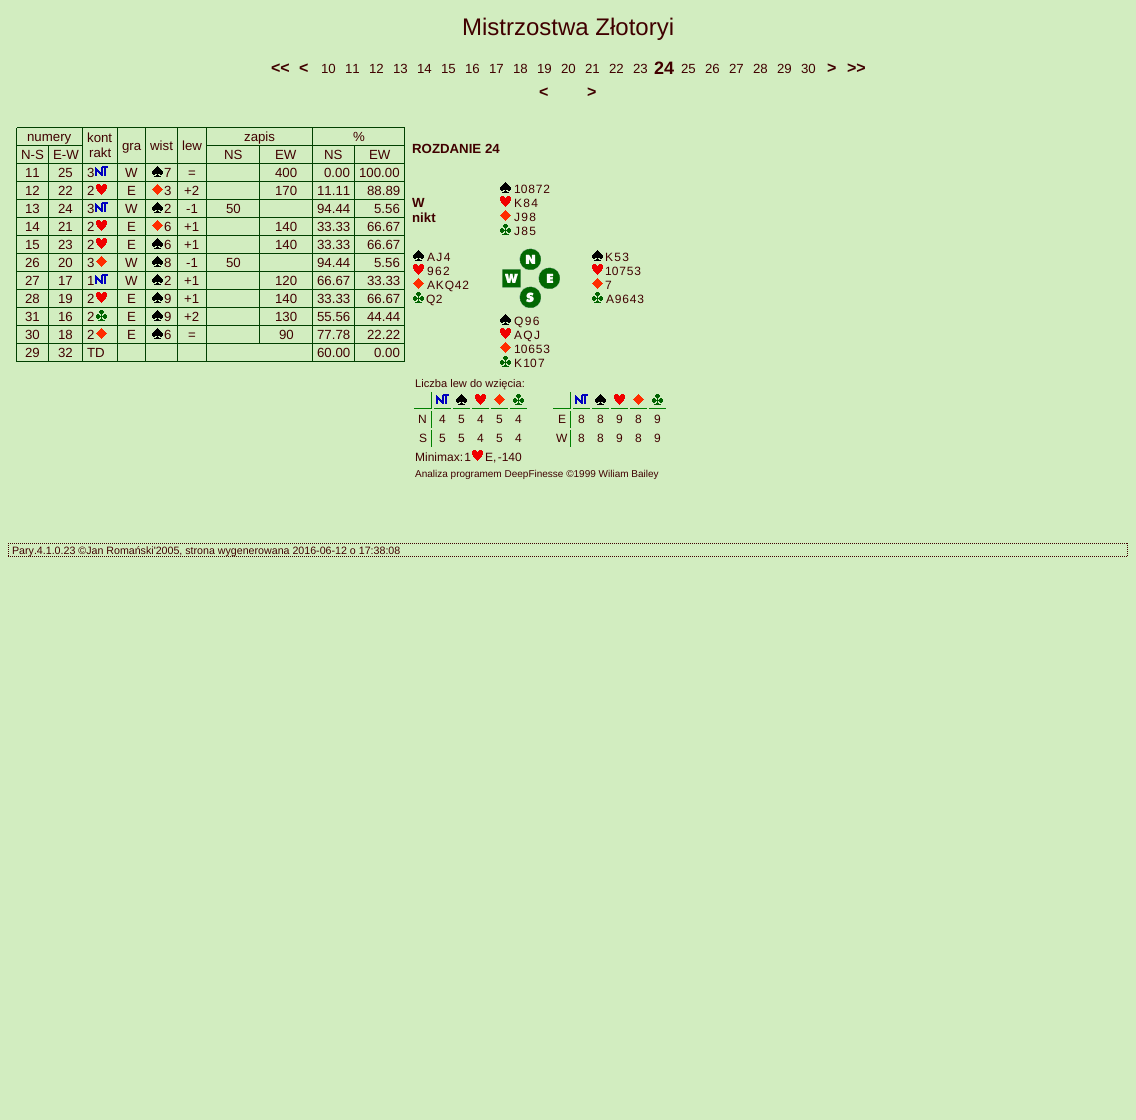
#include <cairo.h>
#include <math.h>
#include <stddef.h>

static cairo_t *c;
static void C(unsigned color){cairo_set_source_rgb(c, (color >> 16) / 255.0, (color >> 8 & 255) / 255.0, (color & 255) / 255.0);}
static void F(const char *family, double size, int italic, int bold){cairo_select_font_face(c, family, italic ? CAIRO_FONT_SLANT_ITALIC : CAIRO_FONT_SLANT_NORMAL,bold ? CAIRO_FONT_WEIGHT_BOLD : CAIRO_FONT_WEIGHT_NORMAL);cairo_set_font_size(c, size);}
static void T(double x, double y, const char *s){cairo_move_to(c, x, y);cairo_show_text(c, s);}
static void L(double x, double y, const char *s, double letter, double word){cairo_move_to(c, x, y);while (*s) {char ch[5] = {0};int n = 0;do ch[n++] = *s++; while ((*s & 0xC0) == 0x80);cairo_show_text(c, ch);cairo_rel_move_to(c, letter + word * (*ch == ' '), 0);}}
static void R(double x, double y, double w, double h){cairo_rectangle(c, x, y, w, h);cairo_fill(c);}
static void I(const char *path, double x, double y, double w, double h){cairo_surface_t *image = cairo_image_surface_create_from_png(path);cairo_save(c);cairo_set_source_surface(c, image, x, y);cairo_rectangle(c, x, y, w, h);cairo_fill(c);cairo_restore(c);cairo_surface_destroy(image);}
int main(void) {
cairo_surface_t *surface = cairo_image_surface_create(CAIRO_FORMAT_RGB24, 1136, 1120);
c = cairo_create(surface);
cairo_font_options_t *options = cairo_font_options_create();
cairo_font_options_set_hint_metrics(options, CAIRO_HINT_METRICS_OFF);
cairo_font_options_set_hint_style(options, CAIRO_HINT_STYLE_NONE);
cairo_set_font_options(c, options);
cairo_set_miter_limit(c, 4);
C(0xd2edc0);
cairo_paint(c);
F("Liberation Sans",24,0,0);
C(0x400000);
T(462,35,"Mistrzostwa Złotoryi");
F("Liberation Sans",16,0,1);
T(271,73,"<<");
T(299,73,"<");
F("Liberation Sans",13.25,0,0);
T(321,73,"10");
T(345,73,"11");
T(369,73,"12");
T(393,73,"13");
T(417,73,"14");
T(441,73,"15");
T(465,73,"16");
T(489,73,"17");
T(513,73,"18");
T(537,73,"19");
T(561,73,"20");
T(585,73,"21");
T(609,73,"22");
T(633,73,"23");
F("Liberation Sans",18,0,1);
T(654,74,"24");
F("Liberation Sans",13.25,0,0);
T(681,73,"25");
T(705,73,"26");
T(729,73,"27");
T(753,73,"28");
T(777,73,"29");
T(801,73,"30");
F("Liberation Sans",16,0,1);
T(827,73,">");
T(847,73,">>");
T(539,97,"<");
T(587,97,">");
C(0x004000);
R(17,127,388,1);
R(16,128,1,234);
R(82,128,1,234);
R(17,145,66,1);
F("Liberation Sans",13.25,0,0);
C(0x400000);
T(27,141,"numery");
C(0x004000);
R(117,128,1,234);
R(83,163,35,1);
C(0x400000);
T(87,142,"kont");
T(89,157,"rakt");
C(0x004000);
R(312,128,1,234);
R(207,145,106,1);
C(0x400000);
T(244,141,"zapis");
C(0x004000);
R(404,128,1,234);
R(313,145,92,1);
C(0x400000);
T(353,141,"%");
C(0x004000);
R(145,128,1,234);
R(118,163,28,1);
C(0x400000);
T(122,150,"gra");
C(0x004000);
R(177,128,1,234);
R(146,163,32,1);
C(0x400000);
T(150,150,"wist");
C(0x004000);
R(206,128,1,234);
R(178,163,29,1);
C(0x400000);
T(182,150,"lew");
C(0x004000);
R(48,146,1,216);
R(17,163,66,1);
C(0x400000);
T(21,159,"N-S");
T(53,159,"E-W");
C(0x004000);
R(259,146,1,198);
R(207,163,106,1);
C(0x400000);
T(224,159,"NS");
T(275,159,"EW");
C(0x004000);
R(354,146,1,216);
R(313,163,92,1);
C(0x400000);
T(324,159,"NS");
T(369,159,"EW");
C(0x004000);
R(17,181,388,1);
C(0x400000);
T(25,177,"11");
T(58,177,"25");
T(87,177,"3");
I("1.png",95,166,13,10);
T(125,177,"W");
I("2.png",152,166,11,11);
T(164,177,"7");
T(188,177,"=");
T(275,177,"400");
T(324,177,"0.00");
T(359,177,"100.00");
C(0x004000);
R(17,199,388,1);
C(0x400000);
T(25,195,"12");
T(58,195,"22");
T(87,195,"2");
I("3.png",96,184,11,11);
T(127,195,"E");
I("4.png",152,184,11,11);
T(164,195,"3");
T(184,195,"+2");
T(275,195,"170");
T(317,195,"11.11");
T(367,195,"88.89");
C(0x004000);
R(17,217,388,1);
C(0x400000);
T(25,213,"13");
T(58,213,"24");
T(87,213,"3");
I("1.png",95,202,13,10);
T(125,213,"W");
I("2.png",152,202,11,11);
T(164,213,"2");
T(186,213,"-1");
T(226,213,"50");
T(317,213,"94.44");
T(374,213,"5.56");
C(0x004000);
R(17,235,388,1);
C(0x400000);
T(25,231,"14");
T(58,231,"21");
T(87,231,"2");
I("3.png",96,220,11,11);
T(127,231,"E");
I("4.png",152,220,11,11);
T(164,231,"6");
T(184,231,"+1");
T(275,231,"140");
T(317,231,"33.33");
T(367,231,"66.67");
C(0x004000);
R(17,253,388,1);
C(0x400000);
T(25,249,"15");
T(58,249,"23");
T(87,249,"2");
I("3.png",96,238,11,11);
T(127,249,"E");
I("2.png",152,238,11,11);
T(164,249,"6");
T(184,249,"+1");
T(275,249,"140");
T(317,249,"33.33");
T(367,249,"66.67");
C(0x004000);
R(17,271,388,1);
C(0x400000);
T(25,267,"26");
T(58,267,"20");
T(87,267,"3");
I("4.png",96,256,11,11);
T(125,267,"W");
I("2.png",152,256,11,11);
T(164,267,"8");
T(186,267,"-1");
T(226,267,"50");
T(317,267,"94.44");
T(374,267,"5.56");
C(0x004000);
R(17,289,388,1);
C(0x400000);
T(25,285,"27");
T(58,285,"17");
T(87,285,"1");
I("1.png",95,274,13,10);
T(125,285,"W");
I("2.png",152,274,11,11);
T(164,285,"2");
T(184,285,"+1");
T(275,285,"120");
T(317,285,"66.67");
T(367,285,"33.33");
C(0x004000);
R(17,307,388,1);
C(0x400000);
T(25,303,"28");
T(58,303,"19");
T(87,303,"2");
I("3.png",96,292,11,11);
T(127,303,"E");
I("2.png",152,292,11,11);
T(164,303,"9");
T(184,303,"+1");
T(275,303,"140");
T(317,303,"33.33");
T(367,303,"66.67");
C(0x004000);
R(17,325,388,1);
C(0x400000);
T(25,321,"31");
T(58,321,"16");
T(87,321,"2");
I("5.png",96,310,11,11);
T(127,321,"E");
I("2.png",152,310,11,11);
T(164,321,"9");
T(184,321,"+2");
T(275,321,"130");
T(317,321,"55.56");
T(367,321,"44.44");
C(0x004000);
R(17,343,388,1);
C(0x400000);
T(25,339,"30");
T(58,339,"18");
T(87,339,"2");
I("4.png",96,328,11,11);
T(127,339,"E");
I("2.png",152,328,11,11);
T(164,339,"6");
T(188,339,"=");
T(279,339,"90");
T(317,339,"77.78");
T(367,339,"22.22");
C(0x004000);
R(17,361,388,1);
C(0x400000);
T(25,357,"29");
T(58,357,"32");
T(87,357,"TD");
T(317,357,"60.00");
T(374,357,"0.00");
F("Liberation Sans",13.25,0,1);
T(412,153,"ROZDANIE 24");
T(412,207,"W");
T(412,222,"nikt");
I("2.png",500,182,11,11);
F("Liberation Sans",12,0,0);
L(514,193,"10 8 7 2",0,-2.5);
I("3.png",500,196,11,11);
L(514,207,"K 8 4",0,-2);
I("4.png",500,210,11,11);
L(514,221,"J 9 8",0,-2);
I("5.png",500,224,11,11);
L(514,235,"J 8 5",0,-2);
I("2.png",413,250,11,11);
L(427,261,"A J 4",0,-2);
I("3.png",413,264,11,11);
L(427,275,"9 6 2",0,-2);
I("4.png",413,278,11,11);
L(427,289,"A K Q 4 2",0,-2.5);
I("5.png",413,292,11,11);
L(426,303,"Q 2",0,-3);
I("6.png",502,248,58,60);
I("2.png",592,250,11,11);
L(605,261,"K 5 3",0,-2);
I("3.png",592,264,11,11);
L(605,275,"10 7 5 3",0,-2.5);
I("4.png",592,278,11,11);
T(605,289,"7");
I("5.png",592,292,11,11);
L(606,303,"A 9 6 4 3",0,-2.5);
I("2.png",500,314,11,11);
L(514,325,"Q 9 6",0,-2);
I("3.png",500,328,11,11);
L(514,339,"A Q J",0,-2);
I("4.png",500,342,11,11);
L(514,353,"10 6 5 3",0,-2.5);
I("5.png",500,356,11,11);
L(514,367,"K 10 7",0,-2);
F("Liberation Sans",11.1,0,0);
T(415,387,"Liczba lew do wzięcia:");
C(0x008000);
R(431,392,1,17);
R(414,408,18,1);
R(434,408,17,1);
I("1.png",436,394,13,10);
R(453,408,17,1);
I("2.png",456,394,11,11);
R(472,408,17,1);
I("3.png",475,394,11,11);
R(491,408,17,1);
I("4.png",494,394,11,11);
R(510,408,17,1);
I("5.png",513,394,11,11);
R(570,392,1,17);
R(553,408,18,1);
R(573,408,17,1);
I("1.png",575,394,13,10);
R(592,408,17,1);
I("2.png",595,394,11,11);
R(611,408,17,1);
I("3.png",614,394,11,11);
R(630,408,17,1);
I("4.png",633,394,11,11);
R(649,408,17,1);
I("5.png",652,394,11,11);
R(431,411,1,17);
F("Liberation Sans",12,0,0);
C(0x400000);
T(418,423,"N");
T(439,423,"4");
T(458,423,"5");
T(477,423,"4");
T(496,423,"5");
T(515,423,"4");
C(0x008000);
R(570,411,1,17);
C(0x400000);
T(558,423,"E");
T(578,423,"8");
T(597,423,"8");
T(616,423,"9");
T(635,423,"8");
T(654,423,"9");
C(0x008000);
R(431,430,1,17);
C(0x400000);
T(419,442,"S");
T(439,442,"5");
T(458,442,"5");
T(477,442,"4");
T(496,442,"5");
T(515,442,"4");
C(0x008000);
R(570,430,1,17);
C(0x400000);
T(556,442,"W");
T(578,442,"8");
T(597,442,"8");
T(616,442,"9");
T(635,442,"8");
T(654,442,"9");
L(415,461,"Minimax: 1",0,-2);
I("3.png",472,450,11,11);
L(485,461,"E, -140",0,-2);
F("Liberation Sans",10,0,0);
T(415,477,"Analiza programem DeepFinesse ©1999 Wiliam Bailey");
cairo_new_path(c);
cairo_move_to(c,8,543.5);
cairo_line_to(c,1128,543.5);
cairo_set_line_width(c,1);
cairo_set_dash(c,(double[]){1,1},2,0);
cairo_stroke(c);
cairo_new_path(c);
cairo_move_to(c,1127.5,543);
cairo_line_to(c,1127.5,557);
cairo_stroke(c);
cairo_new_path(c);
cairo_move_to(c,8,556.5);
cairo_line_to(c,1128,556.5);
cairo_stroke(c);
cairo_new_path(c);
cairo_move_to(c,8.5,543);
cairo_line_to(c,8.5,557);
cairo_stroke(c);
F("Liberation Sans",10.65,0,0);
T(12,554,"Pary.4.1.0.23 ©Jan Romański'2005, strona wygenerowana 2016-06-12 o 17:38:08");
cairo_surface_write_to_png(surface, "o.png");
cairo_font_options_destroy(options);
cairo_destroy(c);
cairo_surface_destroy(surface);
return 0;
}
